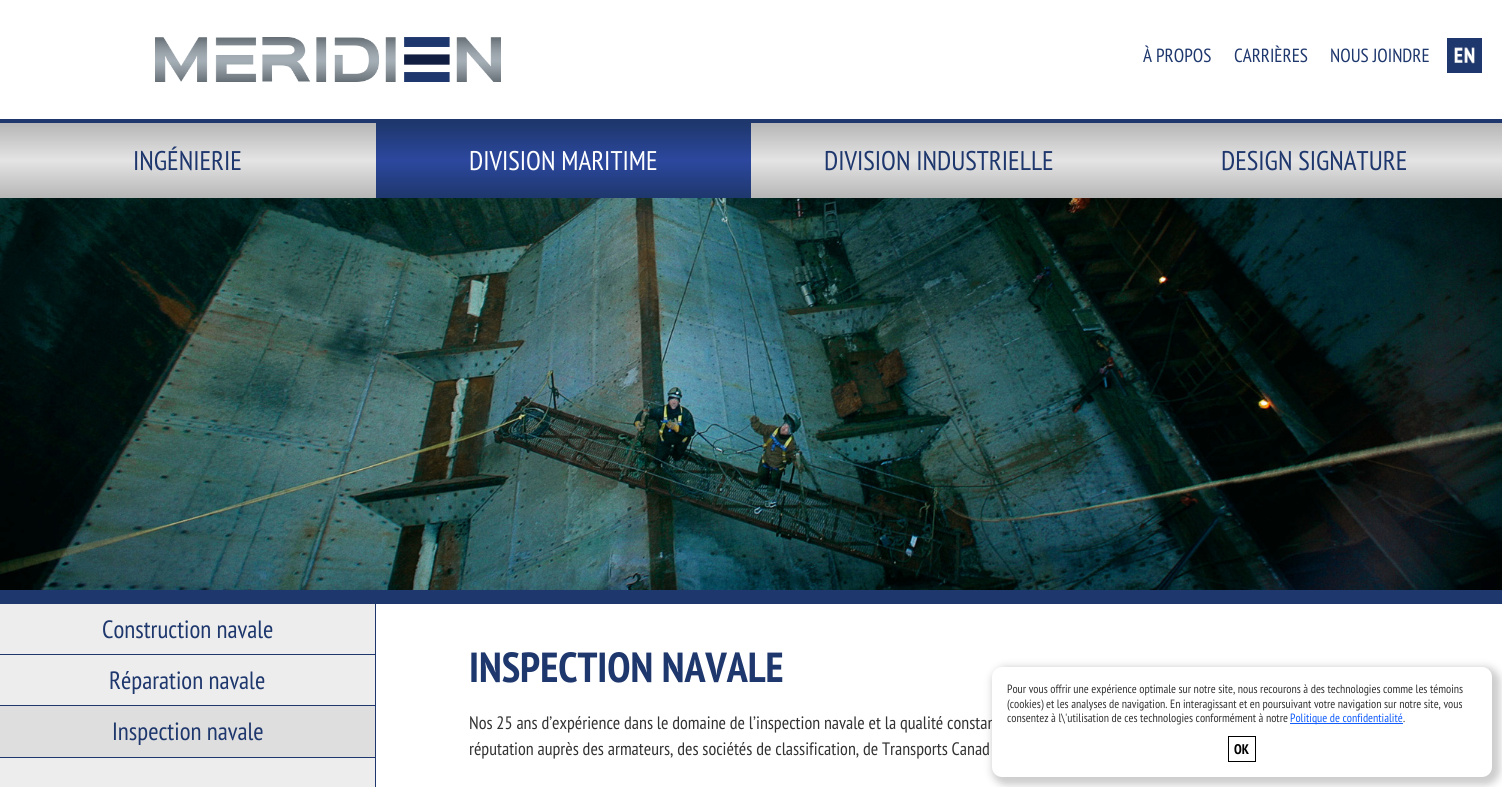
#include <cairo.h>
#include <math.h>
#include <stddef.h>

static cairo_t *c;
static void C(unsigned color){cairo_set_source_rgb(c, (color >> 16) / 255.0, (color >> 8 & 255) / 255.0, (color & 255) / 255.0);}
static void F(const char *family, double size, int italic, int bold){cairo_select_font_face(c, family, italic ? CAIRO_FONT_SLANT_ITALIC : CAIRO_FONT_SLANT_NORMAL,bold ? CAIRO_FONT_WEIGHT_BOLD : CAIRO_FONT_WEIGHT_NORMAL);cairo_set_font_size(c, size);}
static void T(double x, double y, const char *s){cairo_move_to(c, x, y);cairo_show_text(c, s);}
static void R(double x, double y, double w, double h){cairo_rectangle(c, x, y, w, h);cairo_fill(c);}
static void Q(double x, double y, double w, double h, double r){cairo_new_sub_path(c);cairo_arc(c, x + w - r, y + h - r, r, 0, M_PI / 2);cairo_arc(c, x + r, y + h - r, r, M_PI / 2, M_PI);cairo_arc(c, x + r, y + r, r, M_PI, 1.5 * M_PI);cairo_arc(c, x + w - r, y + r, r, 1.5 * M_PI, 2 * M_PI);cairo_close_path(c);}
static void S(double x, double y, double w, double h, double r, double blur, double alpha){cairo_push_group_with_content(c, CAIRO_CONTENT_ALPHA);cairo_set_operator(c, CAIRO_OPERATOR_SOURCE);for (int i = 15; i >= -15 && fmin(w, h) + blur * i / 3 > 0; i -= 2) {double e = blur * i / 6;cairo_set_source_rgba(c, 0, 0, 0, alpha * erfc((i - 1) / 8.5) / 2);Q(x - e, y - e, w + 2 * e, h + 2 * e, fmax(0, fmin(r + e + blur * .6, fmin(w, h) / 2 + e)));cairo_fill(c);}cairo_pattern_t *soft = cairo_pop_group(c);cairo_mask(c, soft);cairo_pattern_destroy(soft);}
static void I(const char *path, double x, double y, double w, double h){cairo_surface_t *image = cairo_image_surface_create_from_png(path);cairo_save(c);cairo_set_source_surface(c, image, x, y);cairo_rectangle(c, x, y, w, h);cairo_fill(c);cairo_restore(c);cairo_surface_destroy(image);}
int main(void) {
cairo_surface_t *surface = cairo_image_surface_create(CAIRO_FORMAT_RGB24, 1502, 787);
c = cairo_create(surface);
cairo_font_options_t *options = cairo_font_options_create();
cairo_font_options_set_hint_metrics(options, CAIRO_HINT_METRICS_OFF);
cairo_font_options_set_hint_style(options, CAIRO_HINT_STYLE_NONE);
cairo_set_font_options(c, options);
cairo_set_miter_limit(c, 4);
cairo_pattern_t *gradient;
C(0xffffff);
cairo_paint(c);
I("1.png",155,37,346,45);
F("PT Sans Narrow",19,0,0);
C(0x1e376d);
T(1143,62,"À PROPOS");
T(1234,62,"CARRIÈRES");
T(1330,62,"NOUS JOINDRE");
I("2.png",1447,38,35,35);
R(0,119,1502,4);
gradient = cairo_pattern_create_linear(188,123,188,198);
cairo_pattern_add_color_stop_rgba(gradient,0,0.714,0.714,0.714,1);
cairo_pattern_add_color_stop_rgba(gradient,.5,0.894,0.894,0.894,1);
cairo_pattern_add_color_stop_rgba(gradient,1,0.714,0.714,0.714,1);
cairo_set_source(c,gradient);
cairo_pattern_destroy(gradient);
R(0,123,376,75);
F("PT Sans Narrow",27,0,0);
C(0x1e376d);
T(133,170,"INGÉNIERIE");
gradient = cairo_pattern_create_linear(564,123,564,198);
cairo_pattern_add_color_stop_rgba(gradient,0,0.118,0.216,0.427,1);
cairo_pattern_add_color_stop_rgba(gradient,.5,0.173,0.282,0.62,1);
cairo_pattern_add_color_stop_rgba(gradient,1,0.118,0.216,0.427,1);
cairo_set_source(c,gradient);
cairo_pattern_destroy(gradient);
R(376,123,375,75);
C(0xffffff);
T(469,170,"DIVISION MARITIME");
gradient = cairo_pattern_create_linear(939,123,939,198);
cairo_pattern_add_color_stop_rgba(gradient,0,0.714,0.714,0.714,1);
cairo_pattern_add_color_stop_rgba(gradient,.5,0.894,0.894,0.894,1);
cairo_pattern_add_color_stop_rgba(gradient,1,0.714,0.714,0.714,1);
cairo_set_source(c,gradient);
cairo_pattern_destroy(gradient);
R(751,123,376,75);
C(0x1e376d);
T(824,170,"DIVISION INDUSTRIELLE");
gradient = cairo_pattern_create_linear(1315,123,1315,198);
cairo_pattern_add_color_stop_rgba(gradient,0,0.714,0.714,0.714,1);
cairo_pattern_add_color_stop_rgba(gradient,.5,0.894,0.894,0.894,1);
cairo_pattern_add_color_stop_rgba(gradient,1,0.714,0.714,0.714,1);
cairo_set_source(c,gradient);
cairo_pattern_destroy(gradient);
R(1127,123,375,75);
C(0x1e376d);
T(1221,170,"DESIGN SIGNATURE");
R(0,590,1502,14);
I("3.png",0,198,1502,392);
C(0xededed);
R(0,604,375,183);
C(0x1e376d);
R(375,604,1,183);
R(0,654,375,1);
F("PT Sans Narrow",25,0,0);
T(102,638,"Construction navale");
R(0,705,375,1);
T(109,689,"Réparation navale");
C(0xdedede);
R(0,706,375,51);
C(0x1e376d);
R(0,757,375,1);
T(112,740,"Inspection navale");
F("PT Sans Narrow",42,0,1);
T(469,682,"INSPECTION NAVALE");
F("PT Sans Narrow",18,0,0);
C(0x333333);
T(469,729,"Nos 25 ans d’expérience dans le domaine de l’inspection navale et la qualité constan");
T(469,755,"réputation auprès des armateurs, des sociétés de classification, de Transports Canad");
C(0x000000);
S(992,667,508,118,14,4,.2);
C(0xffffff);
Q(992,667,500,110,10);
cairo_fill(c);
F("PT Sans Narrow",12,0,0);
C(0x333333);
T(1007,693,"Pour vous offrir une expérience optimale sur notre site, nous recourons à des technologies comme les témoins");
T(1007,708,"(cookies) et les analyses de navigation. En interagissant et en poursuivant votre navigation sur notre site, vous");
T(1007,722,"consentez à l\\'utilisation de ces technologies conformément à notre");
C(0x115cfa);
R(1290,723,113,1);
T(1290,722,"Politique de confidentialité");
C(0x333333);
T(1403,722,".");
cairo_rectangle(c,1228.5,736.5,27,25);
C(0x000000);
cairo_set_line_width(c,1);
cairo_stroke(c);
F("PT Sans Narrow",14,0,1);
T(1234,754,"OK");
cairo_surface_write_to_png(surface, "o.png");
cairo_font_options_destroy(options);
cairo_destroy(c);
cairo_surface_destroy(surface);
return 0;
}
